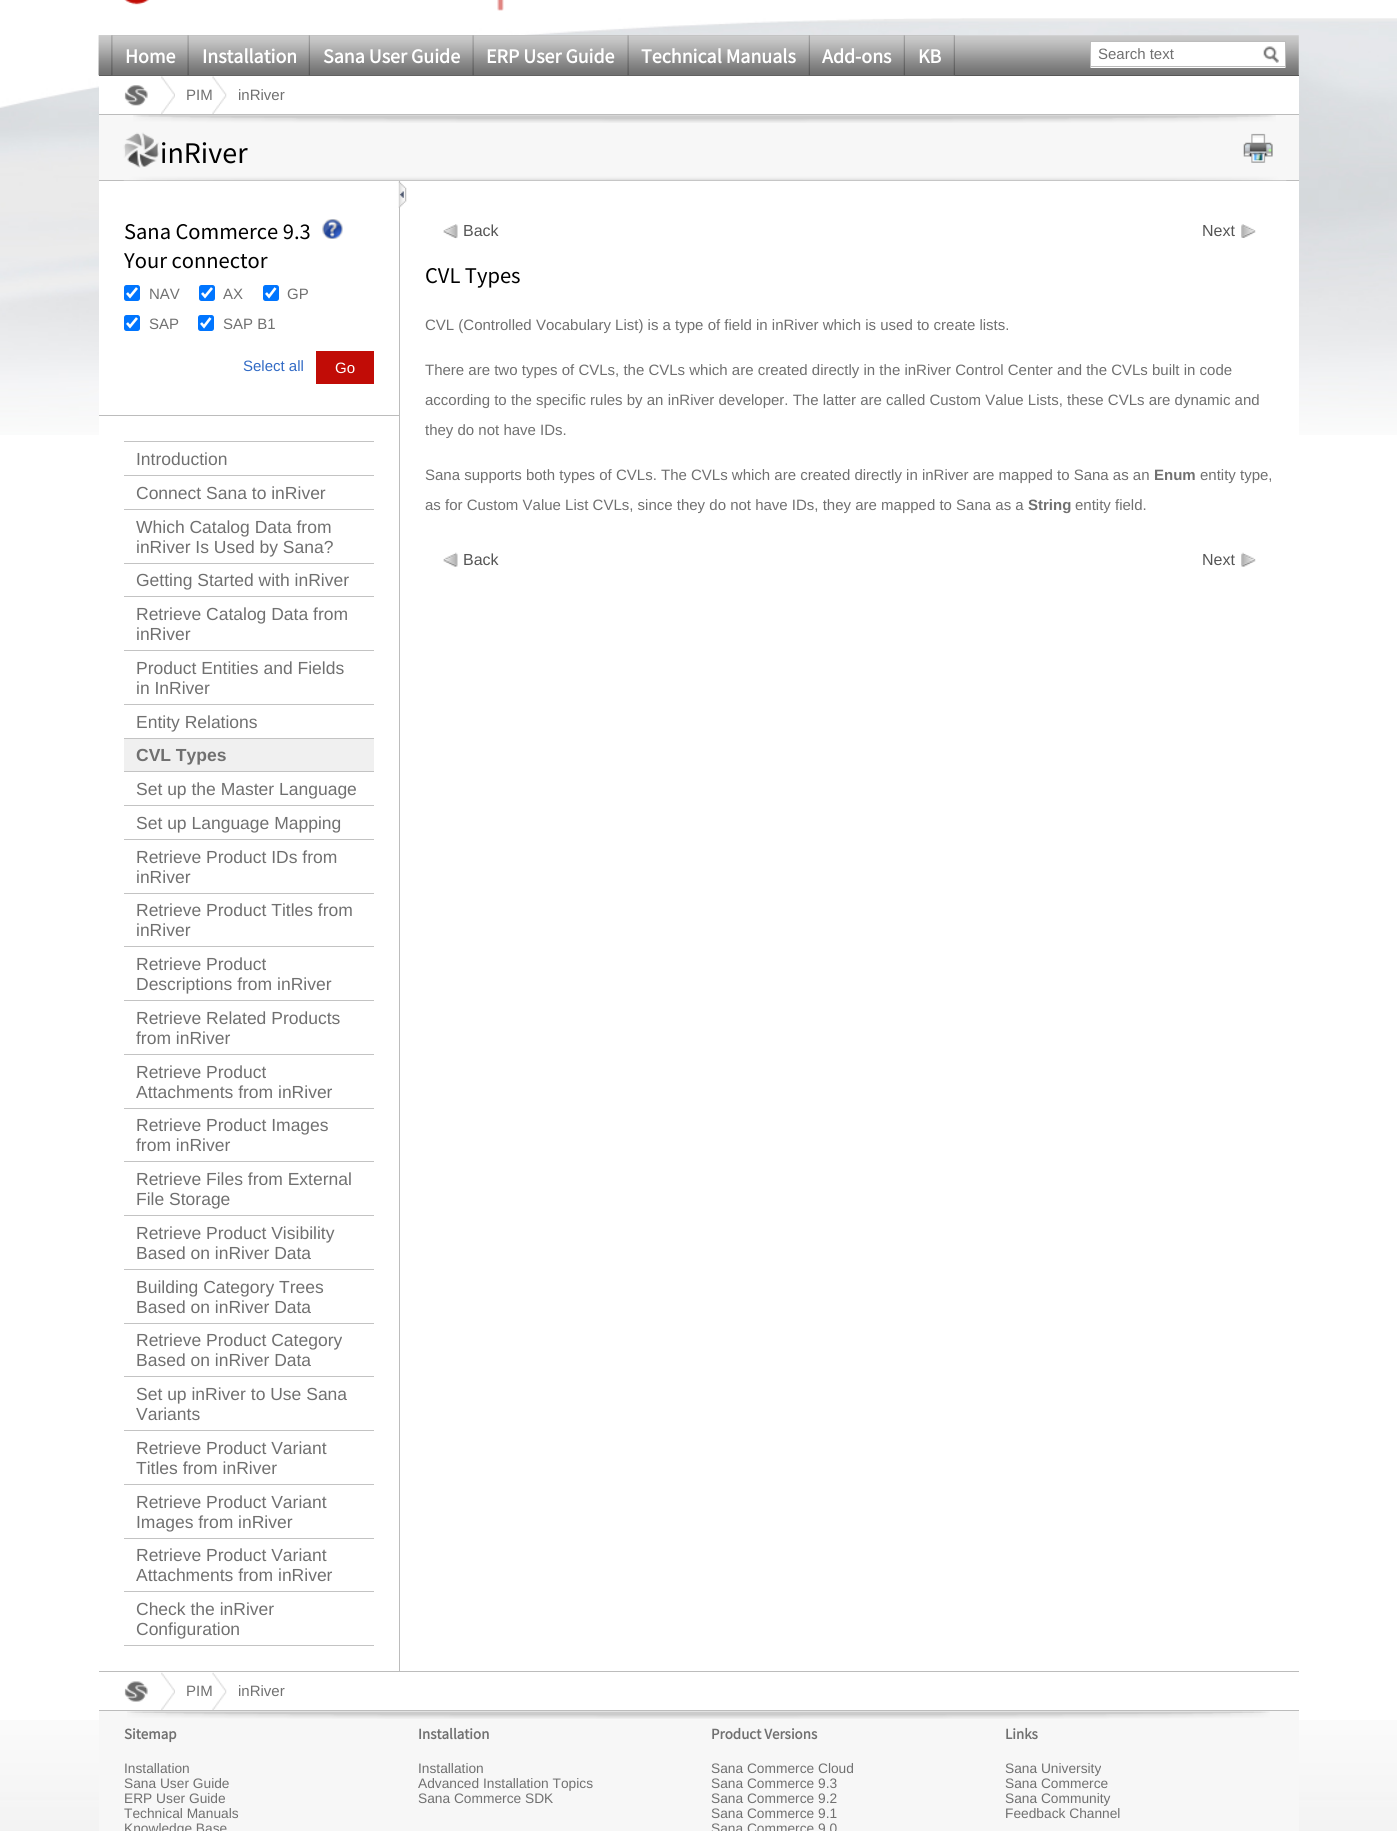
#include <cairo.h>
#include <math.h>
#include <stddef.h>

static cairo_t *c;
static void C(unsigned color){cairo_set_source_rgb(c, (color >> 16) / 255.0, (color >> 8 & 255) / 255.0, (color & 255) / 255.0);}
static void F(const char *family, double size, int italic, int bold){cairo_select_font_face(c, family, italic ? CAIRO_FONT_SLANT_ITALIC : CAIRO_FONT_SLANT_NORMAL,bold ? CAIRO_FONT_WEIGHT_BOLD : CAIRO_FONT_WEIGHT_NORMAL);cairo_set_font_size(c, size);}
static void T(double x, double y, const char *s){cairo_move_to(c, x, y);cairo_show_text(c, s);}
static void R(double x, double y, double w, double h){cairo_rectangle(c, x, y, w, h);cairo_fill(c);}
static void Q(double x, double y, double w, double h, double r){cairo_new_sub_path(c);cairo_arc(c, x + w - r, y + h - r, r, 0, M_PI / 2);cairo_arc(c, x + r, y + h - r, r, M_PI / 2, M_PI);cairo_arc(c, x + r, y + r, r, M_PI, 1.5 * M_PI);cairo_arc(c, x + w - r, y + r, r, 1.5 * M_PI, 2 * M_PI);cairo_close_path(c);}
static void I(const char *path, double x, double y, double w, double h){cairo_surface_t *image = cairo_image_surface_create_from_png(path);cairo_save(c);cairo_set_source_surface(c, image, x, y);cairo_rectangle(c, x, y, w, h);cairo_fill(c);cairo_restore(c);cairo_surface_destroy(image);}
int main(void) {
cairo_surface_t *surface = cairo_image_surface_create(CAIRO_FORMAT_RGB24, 1397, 1831);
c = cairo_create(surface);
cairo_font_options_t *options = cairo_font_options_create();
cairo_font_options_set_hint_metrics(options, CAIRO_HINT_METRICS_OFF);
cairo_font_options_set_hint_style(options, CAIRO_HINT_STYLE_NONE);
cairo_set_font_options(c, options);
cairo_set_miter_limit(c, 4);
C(0xffffff);
cairo_paint(c);
I("1.png",0,1720,1397,111);
I("2.png",0,18,1397,417);
I("3.png",124,0,380,11);
I("4.png",98,35,1201,41);
C(0x565656);
R(99,75,1200,1);
I("5.png",98,35,857,41);
I("6.png",111,35,844,40);
I("7.png",112,35,76,41);
F("Source Sans Pro",20,0,1);
C(0xffffff);
T(125,63,"Home");
I("8.png",188,35,121,41);
T(202,63,"Installation");
I("9.png",310,35,163,41);
T(323,63,"Sana User Guide");
I("10.png",473,35,155,41);
T(486,63,"ERP User Guide");
I("11.png",628,35,181,41);
T(641,63,"Technical Manuals");
I("12.png",810,35,94,41);
T(822,63,"Add-ons");
I("13.png",905,35,49,41);
T(918,63,"KB");
R(1091,42,194,26);
C(0xbcbcbc);
R(1090,41,196,1);
R(1090,66,171,1);
R(1090,41,1,27);
F("Liberation Sans",15,0,0);
C(0x707070);
T(1098,59,"Search text");
C(0xbcbcbc);
R(1285,41,1,27);
R(1261,66,25,1);
I("14.png",1263,46,16,17);
C(0xffffff);
R(99,76,1200,38);
C(0xbcbcbc);
R(99,114,1200,1);
I("15.png",124,85,24,21);
I("16.png",161,76,14,38);
C(0x707070);
T(186,100,"PIM");
I("17.png",212,76,15,38);
T(238,100,"inRiver");
C(0xffffff);
R(99,181,1200,254);
C(0xf7f7f7);
R(99,115,1200,65);
C(0xbcbcbc);
R(99,180,1200,1);
I("18.png",133,115,1143,8);
I("19.png",123,132,36,36);
F("Source Sans Pro",30,0,0);
C(0x000000);
T(160,163,"inRiver");
I("20.png",1243,133,30,30);
I("21.png",123,167,1164,14);
C(0xbcbcbc);
R(99,415,301,1);
R(399,181,1,1490);
I("22.png",398,181,9,27);
F("Source Sans Pro",22.5,0,0);
C(0x000000);
T(124,239,"Sana Commerce 9.3");
T(124,268,"Your connector");
I("23.png",322,219,21,20);
C(0x0075ff);
Q(124,285,16,16,2.5);
cairo_fill(c);
cairo_new_path(c);
cairo_move_to(c,127,293);
cairo_line_to(c,130,296.5);
cairo_line_to(c,137,288);
C(0xffffff);
cairo_set_line_width(c,2.6);
cairo_stroke(c);
F("Liberation Sans",15,0,0);
C(0x707070);
T(149,299,"NAV");
C(0x0075ff);
Q(199,285,16,16,2.5);
cairo_fill(c);
cairo_new_path(c);
cairo_move_to(c,202,293);
cairo_line_to(c,205,296.5);
cairo_line_to(c,212,288);
C(0xffffff);
cairo_stroke(c);
C(0x707070);
T(223,299,"AX");
C(0x0075ff);
Q(263,285,16,16,2.5);
cairo_fill(c);
cairo_new_path(c);
cairo_move_to(c,266,293);
cairo_line_to(c,269,296.5);
cairo_line_to(c,275.5,288);
C(0xffffff);
cairo_stroke(c);
C(0x707070);
T(287,299,"GP");
C(0x0075ff);
Q(124,315,16,16,2.5);
cairo_fill(c);
cairo_new_path(c);
cairo_move_to(c,127,323);
cairo_line_to(c,130,326.5);
cairo_line_to(c,137,318);
C(0xffffff);
cairo_stroke(c);
C(0x707070);
T(149,329,"SAP");
C(0x0075ff);
Q(198,315,16,16,2.5);
cairo_fill(c);
cairo_new_path(c);
cairo_move_to(c,201,323);
cairo_line_to(c,204,326.5);
cairo_line_to(c,210.5,318);
C(0xffffff);
cairo_stroke(c);
C(0x707070);
T(223,329,"SAP B1");
C(0x316ac5);
T(243,371,"Select all");
C(0xc10c06);
R(316,351,58,33);
C(0xffffff);
T(335,373,"Go");
C(0xc3c3c3);
R(124,1645,250,1);
R(124,441,250,1);
F("Liberation Sans",17.5,0,0);
C(0x707070);
T(136,465,"Introduction");
C(0xc3c3c3);
R(124,475,250,1);
C(0x707070);
T(136,499,"Connect Sana to inRiver");
C(0xc3c3c3);
R(124,509,250,1);
C(0x707070);
T(136,533,"Which Catalog Data from");
T(136,553,"inRiver Is Used by Sana?");
C(0xc3c3c3);
R(124,563,250,1);
C(0x707070);
T(136,586,"Getting Started with inRiver");
C(0xc3c3c3);
R(124,596,250,1);
C(0x707070);
T(136,620,"Retrieve Catalog Data from");
T(136,640,"inRiver");
C(0xc3c3c3);
R(124,650,250,1);
C(0x707070);
T(136,674,"Product Entities and Fields");
T(136,694,"in InRiver");
C(0xc3c3c3);
R(124,704,250,1);
C(0x707070);
T(136,728,"Entity Relations");
C(0xf0f0f0);
R(124,739,250,32);
C(0xc3c3c3);
R(124,738,250,1);
F("Liberation Sans",17.5,0,1);
C(0x707070);
T(136,761,"CVL Types");
C(0xc3c3c3);
R(124,771,250,1);
F("Liberation Sans",17.5,0,0);
C(0x707070);
T(136,795,"Set up the Master Language");
C(0xc3c3c3);
R(124,805,250,1);
C(0x707070);
T(136,829,"Set up Language Mapping");
C(0xc3c3c3);
R(124,839,250,1);
C(0x707070);
T(136,863,"Retrieve Product IDs from");
T(136,883,"inRiver");
C(0xc3c3c3);
R(124,893,250,1);
C(0x707070);
T(136,916,"Retrieve Product Titles from");
T(136,936,"inRiver");
C(0xc3c3c3);
R(124,946,250,1);
C(0x707070);
T(136,970,"Retrieve Product");
T(136,990,"Descriptions from inRiver");
C(0xc3c3c3);
R(124,1000,250,1);
C(0x707070);
T(136,1024,"Retrieve Related Products");
T(136,1044,"from inRiver");
C(0xc3c3c3);
R(124,1054,250,1);
C(0x707070);
T(136,1078,"Retrieve Product");
T(136,1098,"Attachments from inRiver");
C(0xc3c3c3);
R(124,1108,250,1);
C(0x707070);
T(136,1131,"Retrieve Product Images");
T(136,1151,"from inRiver");
C(0xc3c3c3);
R(124,1161,250,1);
C(0x707070);
T(136,1185,"Retrieve Files from External");
T(136,1205,"File Storage");
C(0xc3c3c3);
R(124,1215,250,1);
C(0x707070);
T(136,1239,"Retrieve Product Visibility");
T(136,1259,"Based on inRiver Data");
C(0xc3c3c3);
R(124,1269,250,1);
C(0x707070);
T(136,1293,"Building Category Trees");
T(136,1313,"Based on inRiver Data");
C(0xc3c3c3);
R(124,1323,250,1);
C(0x707070);
T(136,1346,"Retrieve Product Category");
T(136,1366,"Based on inRiver Data");
C(0xc3c3c3);
R(124,1376,250,1);
C(0x707070);
T(136,1400,"Set up inRiver to Use Sana");
T(136,1420,"Variants");
C(0xc3c3c3);
R(124,1430,250,1);
C(0x707070);
T(136,1454,"Retrieve Product Variant");
T(136,1474,"Titles from inRiver");
C(0xc3c3c3);
R(124,1484,250,1);
C(0x707070);
T(136,1508,"Retrieve Product Variant");
T(136,1528,"Images from inRiver");
C(0xc3c3c3);
R(124,1538,250,1);
C(0x707070);
T(136,1561,"Retrieve Product Variant");
T(136,1581,"Attachments from inRiver");
C(0xc3c3c3);
R(124,1591,250,1);
C(0x707070);
T(136,1615,"Check the inRiver");
T(136,1635,"Configuration");
I("24.png",443,224,15,15);
F("Liberation Sans",16,0,0);
C(0x555555);
T(463,236,"Back");
I("25.png",1241,224,15,14);
T(1202,236,"Next");
F("Source Sans Pro",22.5,0,0);
C(0x000000);
T(425,283,"CVL Types");
F("Liberation Sans",15,0,0);
C(0x707070);
T(425,330,"CVL (Controlled Vocabulary List) is a type of field in inRiver which is used to create lists.");
T(425,375,"There are two types of CVLs, the CVLs which are created directly in the inRiver Control Center and the CVLs built in code");
T(425,405,"according to the specific rules by an inRiver developer. The latter are called Custom Value Lists, these CVLs are dynamic and");
T(425,435,"they do not have IDs.");
T(425,480,"Sana supports both types of CVLs. The CVLs which are created directly in inRiver are mapped to Sana as an");
F("Liberation Sans",15,0,1);
T(1154,480,"Enum");
F("Liberation Sans",15,0,0);
T(1200,480,"entity type,");
T(425,510,"as for Custom Value List CVLs, since they do not have IDs, they are mapped to Sana as a");
F("Liberation Sans",15,0,1);
T(1028,510,"String");
F("Liberation Sans",15,0,0);
T(1075,510,"entity field.");
I("26.png",443,552,15,15);
F("Liberation Sans",16,0,0);
C(0x555555);
T(463,565,"Back");
I("27.png",1241,552,15,15);
T(1202,565,"Next");
C(0xbcbcbc);
R(99,1671,1200,1);
I("28.png",124,1681,24,21);
I("29.png",161,1672,14,38);
F("Liberation Sans",15,0,0);
C(0x707070);
T(186,1696,"PIM");
I("30.png",212,1672,15,38);
T(238,1696,"inRiver");
C(0xf7f7f7);
R(99,1711,1200,120);
I("31.png",127,1711,1143,8);
C(0xbcbcbc);
R(99,1710,1200,1);
F("Source Sans Pro",15,0,1);
C(0x707070);
T(124,1739,"Sitemap");
F("Liberation Sans",13.75,0,0);
T(124,1773,"Installation");
T(124,1788,"Sana User Guide");
T(124,1803,"ERP User Guide");
T(124,1818,"Technical Manuals");
T(124,1833,"Knowledge Base");
F("Source Sans Pro",15,0,1);
T(418,1739,"Installation");
F("Liberation Sans",13.75,0,0);
T(418,1773,"Installation");
T(418,1788,"Advanced Installation Topics");
T(418,1803,"Sana Commerce SDK");
F("Source Sans Pro",15,0,1);
T(711,1739,"Product Versions");
F("Liberation Sans",13.75,0,0);
T(711,1773,"Sana Commerce Cloud");
T(711,1788,"Sana Commerce 9.3");
T(711,1803,"Sana Commerce 9.2");
T(711,1818,"Sana Commerce 9.1");
T(711,1833,"Sana Commerce 9.0");
F("Source Sans Pro",15,0,1);
T(1005,1739,"Links");
F("Liberation Sans",13.75,0,0);
T(1005,1773,"Sana University");
T(1005,1788,"Sana Commerce");
T(1005,1803,"Sana Community");
T(1005,1818,"Feedback Channel");
cairo_surface_write_to_png(surface, "o.png");
cairo_font_options_destroy(options);
cairo_destroy(c);
cairo_surface_destroy(surface);
return 0;
}
